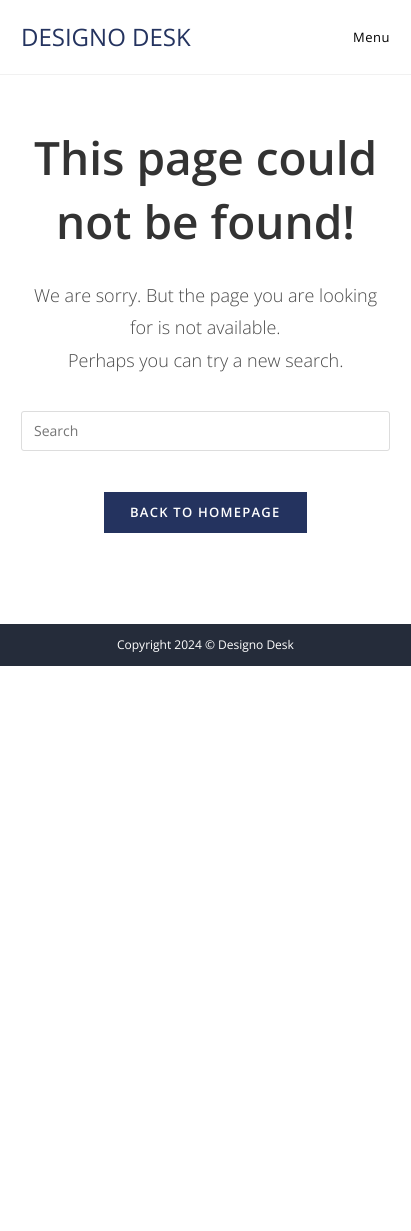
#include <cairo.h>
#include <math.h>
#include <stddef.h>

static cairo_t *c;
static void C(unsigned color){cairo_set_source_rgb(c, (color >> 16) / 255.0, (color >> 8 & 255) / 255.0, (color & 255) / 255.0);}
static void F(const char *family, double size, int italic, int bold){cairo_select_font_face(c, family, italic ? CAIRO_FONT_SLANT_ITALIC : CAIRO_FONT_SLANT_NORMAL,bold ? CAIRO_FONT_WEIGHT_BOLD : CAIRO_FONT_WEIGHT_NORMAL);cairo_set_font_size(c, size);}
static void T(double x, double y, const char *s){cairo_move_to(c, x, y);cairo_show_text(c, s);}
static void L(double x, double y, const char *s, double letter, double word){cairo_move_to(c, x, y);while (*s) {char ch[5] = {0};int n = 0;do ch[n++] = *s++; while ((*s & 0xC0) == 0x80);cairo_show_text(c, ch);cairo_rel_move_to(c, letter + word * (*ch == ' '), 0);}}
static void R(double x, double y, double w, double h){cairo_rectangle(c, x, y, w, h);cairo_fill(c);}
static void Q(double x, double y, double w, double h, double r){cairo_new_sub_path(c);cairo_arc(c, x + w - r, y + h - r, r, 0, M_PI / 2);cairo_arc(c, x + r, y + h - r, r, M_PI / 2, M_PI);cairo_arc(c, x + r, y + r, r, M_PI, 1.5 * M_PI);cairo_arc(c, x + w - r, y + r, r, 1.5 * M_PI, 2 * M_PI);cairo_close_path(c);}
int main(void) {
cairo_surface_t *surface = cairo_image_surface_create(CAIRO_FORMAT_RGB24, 411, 1231);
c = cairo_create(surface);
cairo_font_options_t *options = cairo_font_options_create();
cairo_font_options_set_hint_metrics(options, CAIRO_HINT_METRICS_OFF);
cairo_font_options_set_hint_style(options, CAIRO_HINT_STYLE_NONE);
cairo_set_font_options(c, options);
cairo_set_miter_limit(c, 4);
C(0xffffff);
cairo_paint(c);
C(0xf1f1f1);
R(0,74,411,1);
F("Open Sans",24,0,0);
C(0x24335f);
T(21,46,"DESIGNO DESK");
F("Open Sans",13,0,0);
C(0x000000);
L(353,42,"Menu",.5,0);
F("Open Sans SemiBold",46,0,0);
C(0x333333);
T(34,175,"This page could");
T(56,239,"not be found!");
F("Open Sans Light",18,0,0);
C(0x4a4a4a);
T(34,302,"We are sorry. But the page you are looking");
T(130,334,"for is not available.");
T(68,367,"Perhaps you can try a new search.");
Q(21.5,411.5,368,39,2.5);
C(0xdddddd);
cairo_set_line_width(c,1);
cairo_stroke(c);
F("Open Sans",14,0,0);
C(0x757575);
T(34,436,"Search");
C(0x24335f);
R(104,492,203,41);
F("Open Sans SemiBold",13,0,0);
C(0xffffff);
L(130,517,"BACK TO HOMEPAGE",1.25,0);
C(0x252c3a);
R(0,624,411,42);
F("Open Sans",12,0,0);
C(0xffffff);
T(117,649,"Copyright 2024 © Designo Desk");
cairo_surface_write_to_png(surface, "o.png");
cairo_font_options_destroy(options);
cairo_destroy(c);
cairo_surface_destroy(surface);
return 0;
}
